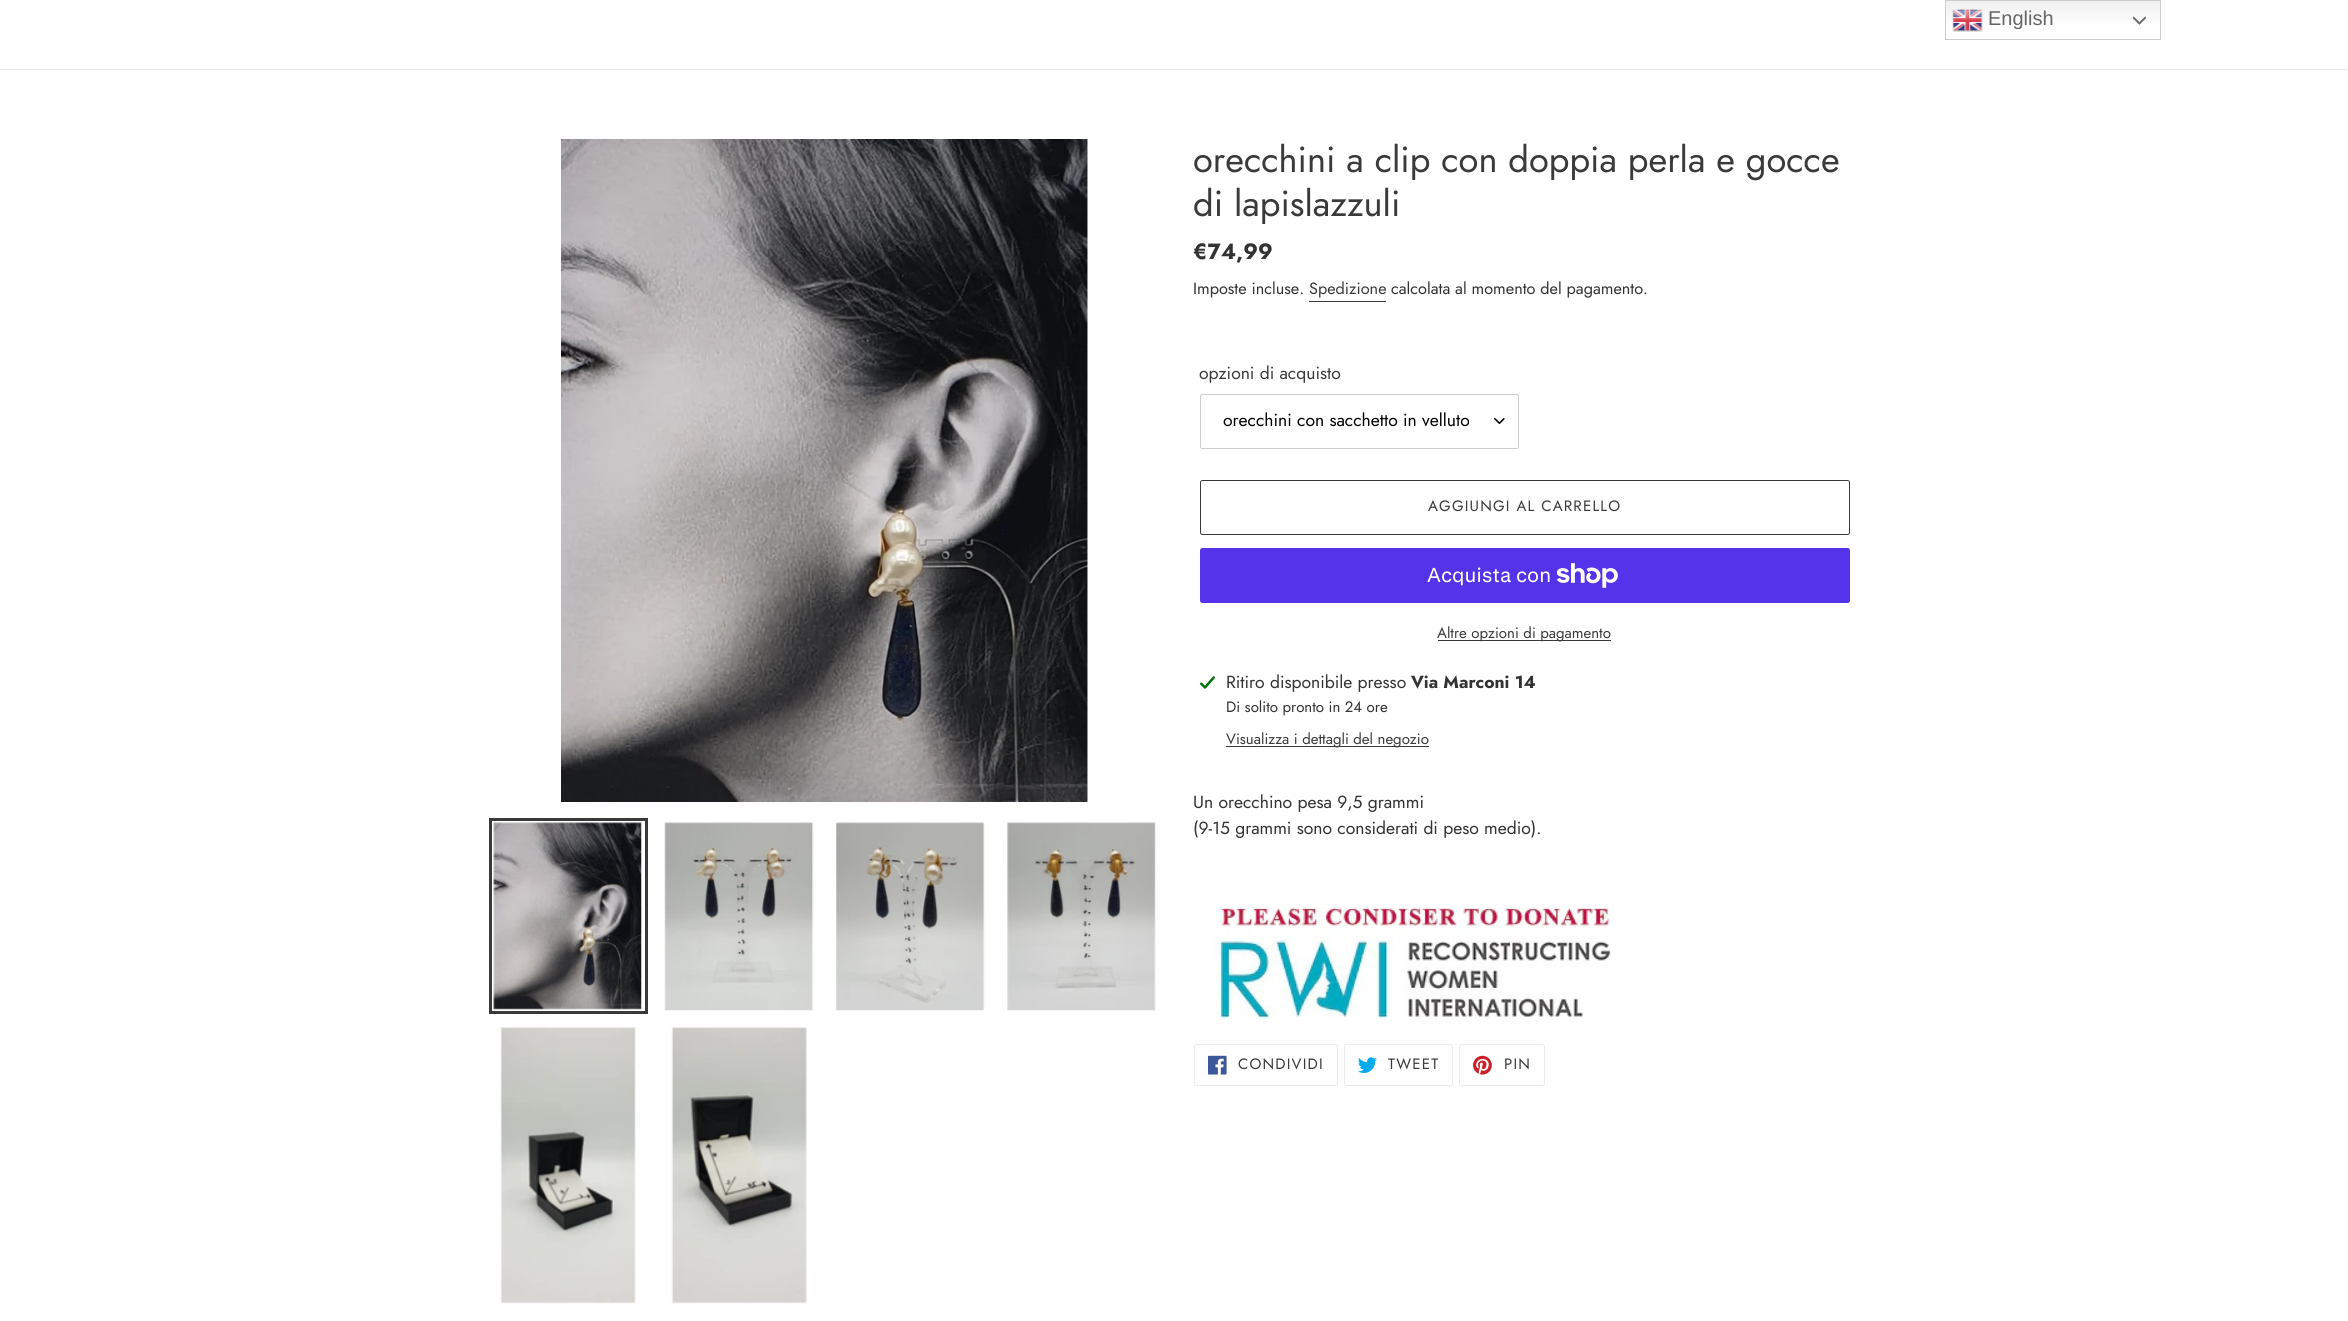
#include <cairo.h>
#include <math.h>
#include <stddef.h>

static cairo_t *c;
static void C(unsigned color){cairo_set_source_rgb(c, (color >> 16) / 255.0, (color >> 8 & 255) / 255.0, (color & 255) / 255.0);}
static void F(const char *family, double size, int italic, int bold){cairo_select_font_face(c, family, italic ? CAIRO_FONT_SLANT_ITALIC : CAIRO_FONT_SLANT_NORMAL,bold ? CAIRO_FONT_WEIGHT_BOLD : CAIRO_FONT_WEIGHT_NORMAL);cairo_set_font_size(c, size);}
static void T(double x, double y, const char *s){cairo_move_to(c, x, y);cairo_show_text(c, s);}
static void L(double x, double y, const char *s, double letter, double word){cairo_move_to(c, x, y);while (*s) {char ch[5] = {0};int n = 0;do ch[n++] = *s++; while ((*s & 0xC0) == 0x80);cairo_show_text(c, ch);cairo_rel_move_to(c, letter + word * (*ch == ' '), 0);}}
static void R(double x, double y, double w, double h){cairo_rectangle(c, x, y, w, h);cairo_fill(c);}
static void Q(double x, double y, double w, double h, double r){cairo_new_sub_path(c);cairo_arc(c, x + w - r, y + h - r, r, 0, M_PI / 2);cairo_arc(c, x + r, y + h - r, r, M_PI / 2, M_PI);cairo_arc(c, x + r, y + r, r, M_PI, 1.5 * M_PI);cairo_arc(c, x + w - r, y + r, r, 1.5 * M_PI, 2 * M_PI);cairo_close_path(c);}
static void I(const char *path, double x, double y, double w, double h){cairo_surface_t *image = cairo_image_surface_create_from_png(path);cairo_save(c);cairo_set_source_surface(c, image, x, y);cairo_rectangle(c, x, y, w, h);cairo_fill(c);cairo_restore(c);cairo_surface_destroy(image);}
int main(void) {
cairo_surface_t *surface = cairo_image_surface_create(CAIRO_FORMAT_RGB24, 2348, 1321);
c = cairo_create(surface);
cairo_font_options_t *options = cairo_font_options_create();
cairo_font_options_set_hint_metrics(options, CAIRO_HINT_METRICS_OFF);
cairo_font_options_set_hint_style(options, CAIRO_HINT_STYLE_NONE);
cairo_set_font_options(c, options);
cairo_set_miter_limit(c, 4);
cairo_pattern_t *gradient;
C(0xffffff);
cairo_paint(c);
gradient = cairo_pattern_create_linear(2053,0,2053,40);
cairo_pattern_add_color_stop_rgba(gradient,0,0.937,0.937,0.937,1);
cairo_pattern_add_color_stop_rgba(gradient,.7,1,1,1,1);
cairo_set_source(c,gradient);
cairo_pattern_destroy(gradient);
R(1946,1,214,23);
cairo_rectangle(c,1945.5,.5,215,39);
C(0xcccccc);
cairo_set_line_width(c,1);
cairo_stroke(c);
I("1.png",1952,9,31,23);
F("Liberation Sans",20,0,0);
C(0x666666);
T(1988,25,"English");
I("2.png",2133,16,13,9);
C(0xebebeb);
R(0,69,2348,1);
I("3.png",561,139,527,663);
cairo_rectangle(c,490.5,819.5,156,193);
C(0x3a3a3a);
cairo_set_line_width(c,3);
cairo_stroke(c);
I("4.png",493,822,149,188);
I("5.png",664,822,150,189);
I("6.png",836,822,149,189);
I("7.png",1007,822,149,189);
I("8.png",500,1027,136,277);
I("9.png",671,1027,136,277);
F("Jost",36.25,0,0);
T(1193,172,"orecchini a clip con doppia perla e gocce");
T(1193,216,"di lapislazzuli");
F("Jost",22,0,1);
C(0x333232);
T(1193,259,"€74,99");
F("Jost",16.25,0,0);
T(1193,294,"Imposte incluse.");
C(0x3a3a3a);
T(1309,294,"Spedizione");
R(1309,301,77,1);
C(0x333232);
T(1391,294,"calcolata al momento del pagamento.");
F("Jost",17.5,0,0);
C(0x3a3a3a);
T(1199,379,"opzioni di acquisto");
I("10.png",1494,418,11,6);
Q(1200.5,394.5,318,54,2);
C(0xcccccc);
cairo_set_line_width(c,1);
cairo_stroke(c);
C(0x000000);
T(1223,426,"orecchini con sacchetto in velluto");
Q(1200.5,480.5,649,54,2);
C(0x3a3a3a);
cairo_stroke(c);
F("Jost",15,0,0);
L(1428,511,"AGGIUNGI AL CARRELLO",1.2,0);
C(0x5433eb);
Q(1200,548,650,55,2.5);
cairo_fill(c);
F("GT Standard",20,0,0);
C(0xffffff);
T(1427,582,"Acquista con");
I("11.png",1556,563,62,25);
C(0x3a3a3a);
R(1438,640,173,1);
F("Jost",15,0,0);
T(1437,638,"Altre opzioni di pagamento");
I("12.png",1200,676,15,13);
F("Jost",17.5,0,0);
C(0x333232);
T(1226,688,"Ritiro disponibile presso");
F("Jost",17.5,0,1);
T(1411,688,"Via Marconi 14");
F("Jost",15,0,0);
T(1226,712,"Di solito pronto in 24 ore");
C(0x3a3a3a);
R(1226,746,203,1);
T(1226,744,"Visualizza i dettagli del negozio");
F("Jost",17.5,0,0);
C(0x333232);
T(1193,808,"Un orecchino pesa 9,5 grammi");
T(1193,834,"(9-15 grammi sono considerati di peso medio).");
I("13.png",1214,905,397,115);
Q(1194.5,1044.5,143,41,2);
C(0xebebeb);
cairo_stroke(c);
I("14.png",1208,1055,19,20);
F("Jost",15,0,0);
C(0x3a3a3a);
L(1238,1069,"CONDIVIDI",1.2,0);
Q(1344.5,1044.5,108,41,2);
C(0xebebeb);
cairo_stroke(c);
I("15.png",1358,1057,19,16);
C(0x3a3a3a);
L(1388,1069,"TWEET",1.2,0);
Q(1459.5,1044.5,85,41,2);
C(0xebebeb);
cairo_stroke(c);
I("16.png",1473,1055,19,20);
C(0x3a3a3a);
L(1504,1069,"PIN",1.2,0);
cairo_surface_write_to_png(surface, "o.png");
cairo_font_options_destroy(options);
cairo_destroy(c);
cairo_surface_destroy(surface);
return 0;
}
